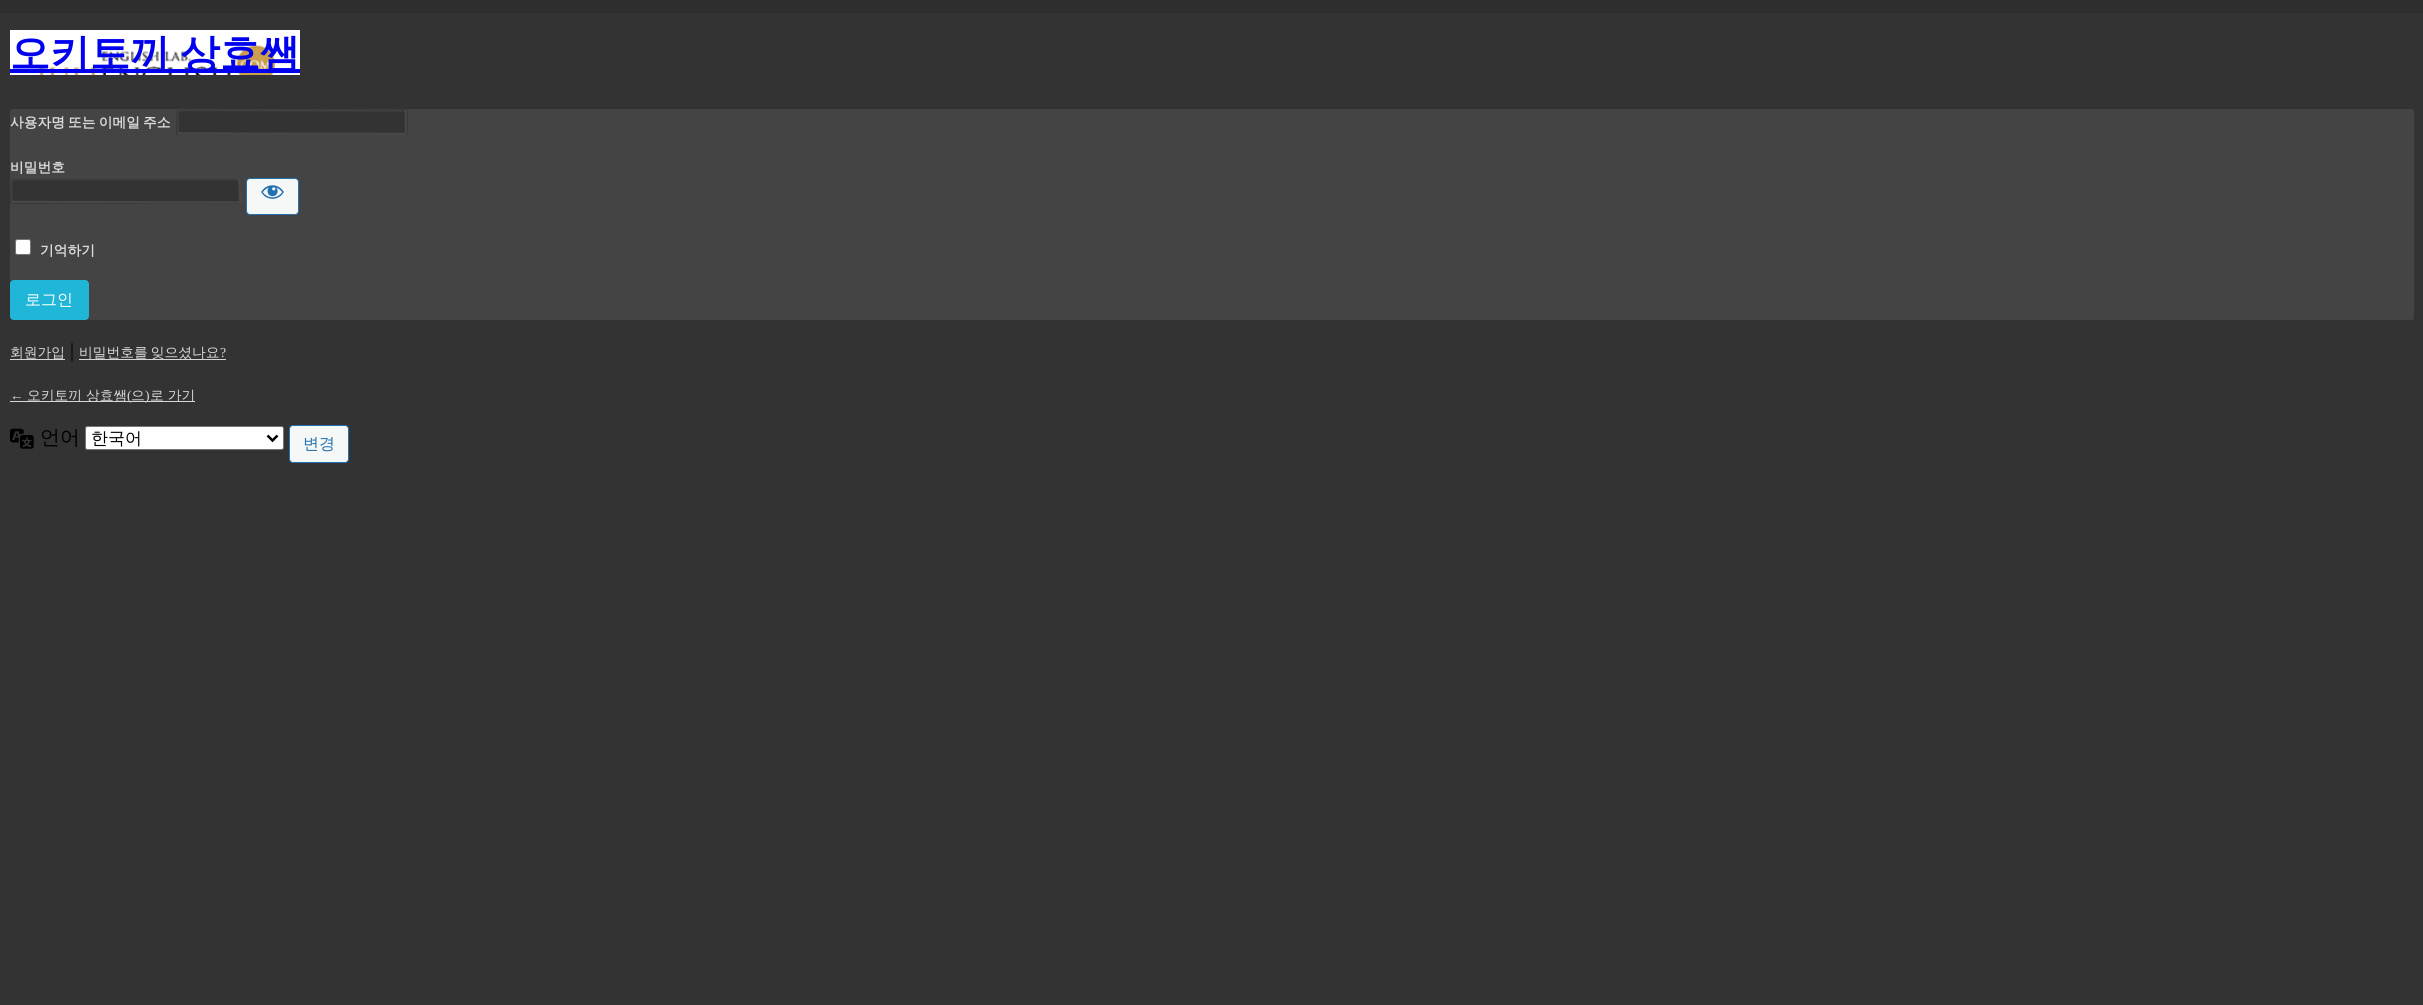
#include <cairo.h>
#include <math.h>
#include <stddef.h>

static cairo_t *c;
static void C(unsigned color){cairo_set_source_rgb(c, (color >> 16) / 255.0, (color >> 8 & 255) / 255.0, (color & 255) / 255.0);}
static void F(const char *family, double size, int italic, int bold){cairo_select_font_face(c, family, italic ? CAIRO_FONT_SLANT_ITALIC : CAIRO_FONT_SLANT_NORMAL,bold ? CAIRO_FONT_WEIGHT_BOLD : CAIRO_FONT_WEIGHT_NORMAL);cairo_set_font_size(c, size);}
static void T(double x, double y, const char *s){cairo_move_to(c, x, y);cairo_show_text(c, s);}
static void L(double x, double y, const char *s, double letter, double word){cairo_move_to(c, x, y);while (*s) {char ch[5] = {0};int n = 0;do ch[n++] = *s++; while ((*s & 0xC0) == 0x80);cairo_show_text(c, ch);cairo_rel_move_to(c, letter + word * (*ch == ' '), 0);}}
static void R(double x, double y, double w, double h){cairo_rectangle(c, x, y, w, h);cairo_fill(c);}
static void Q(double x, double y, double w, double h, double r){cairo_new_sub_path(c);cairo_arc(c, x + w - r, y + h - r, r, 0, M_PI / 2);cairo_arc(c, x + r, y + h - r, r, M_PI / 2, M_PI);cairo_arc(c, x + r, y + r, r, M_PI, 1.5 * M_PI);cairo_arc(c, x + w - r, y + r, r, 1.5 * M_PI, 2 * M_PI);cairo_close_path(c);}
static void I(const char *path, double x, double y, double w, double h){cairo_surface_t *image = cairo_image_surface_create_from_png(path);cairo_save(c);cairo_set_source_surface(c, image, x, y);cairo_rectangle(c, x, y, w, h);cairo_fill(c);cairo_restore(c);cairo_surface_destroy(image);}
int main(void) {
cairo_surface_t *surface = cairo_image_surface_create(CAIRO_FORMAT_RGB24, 2423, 1005);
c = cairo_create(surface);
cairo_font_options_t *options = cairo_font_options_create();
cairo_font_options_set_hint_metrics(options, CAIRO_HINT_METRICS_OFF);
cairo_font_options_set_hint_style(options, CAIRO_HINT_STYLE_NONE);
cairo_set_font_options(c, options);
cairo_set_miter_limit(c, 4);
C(0x333333);
cairo_paint(c);
C(0x2e2e2e);
R(0,0,2423,13);
I("1.png",10,30,290,45);
C(0x0000ee);
R(10,69,290,4);
F("WenQuanYi Zen Hei",40,0,1);
L(10,67,"오키토끼 상효쌤",0,-2);
C(0x444444);
Q(10,109,2404,211,2.5);
cairo_fill(c);
F("WenQuanYi Zen Hei",13.75,0,1);
C(0xdadada);
L(10,127,"사용자명 또는 이메일 주소",0,-1);
C(0x333333);
Q(176,109,232,26,2.5);
cairo_fill(c);
cairo_new_path(c);
cairo_move_to(c,406,110.5);
cairo_line_to(c,406,129);
cairo_curve_to(c,406,129.5,407,133.5,405,134);
cairo_line_to(c,178,133.5);
C(0x474747);
cairo_set_line_width(c,2.5);
cairo_stroke(c);
cairo_new_path(c);
cairo_move_to(c,178,133.5);
cairo_line_to(c,177.5,115);
cairo_curve_to(c,177.5,114.5,176.5,110,179,110);
cairo_line_to(c,406,110.5);
cairo_set_source_rgba(c,0.667,0.667,0.667,0.1);
cairo_stroke(c);
C(0xdadada);
T(10,172,"비밀번호");
C(0x333333);
Q(10,178,231,26,2.5);
cairo_fill(c);
cairo_new_path(c);
cairo_move_to(c,239.5,179);
cairo_line_to(c,240,197.5);
cairo_curve_to(c,240,198,241,202.5,239,202.5);
cairo_line_to(c,11.5,202);
cairo_set_source_rgba(c,1,1,1,0.1);
cairo_stroke(c);
cairo_new_path(c);
cairo_move_to(c,11.5,202);
cairo_line_to(c,11,183.5);
cairo_curve_to(c,11,183,10.5,179,12.5,179);
cairo_line_to(c,239.5,179);
cairo_set_source_rgba(c,0.667,0.667,0.667,0.1);
cairo_stroke(c);
C(0xf6f7f7);
Q(246.5,178.5,52,36,3.5);
cairo_fill_preserve(c);
C(0x2271b1);
cairo_set_line_width(c,1);
cairo_stroke(c);
I("2.png",261,185,23,14);
C(0xffffff);
Q(15.5,239.5,15,15,2);
cairo_fill_preserve(c);
C(0x767676);
cairo_stroke(c);
C(0xdadada);
T(40,255,"기억하기");
C(0x20b6d8);
Q(10,280,79,40,4);
cairo_fill(c);
F("WenQuanYi Zen Hei Medium",16,0,0);
C(0xffffff);
T(25,305,"로그인");
C(0xd6d6d6);
R(10,359,55,1);
F("WenQuanYi Zen Hei Medium",13.75,0,0);
C(0xdadada);
T(10,357,"회원가입");
F("Liberation Serif",20,0,0);
C(0x000000);
T(70,357,"|");
C(0xd6d6d6);
R(79,359,147,1);
F("WenQuanYi Zen Hei Medium",13.75,0,0);
C(0xdadada);
L(79,357,"비밀번호를 잊으셨나요",0,-1);
F("Liberation Serif",13.75,0,0);
T(220,357,"?");
T(10,400,"←");
C(0xd6d6d6);
R(10,401,185,1);
F("WenQuanYi Zen Hei Medium",13.75,0,0);
C(0xdadada);
T(27,400,"오키토끼 상효쌤");
F("Liberation Serif",13.75,0,0);
T(127,400,"(");
F("WenQuanYi Zen Hei Medium",13.75,0,0);
T(131,400,"으");
F("Liberation Serif",13.75,0,0);
T(145,400,")");
F("WenQuanYi Zen Hei Medium",13.75,0,0);
T(150,400,"로 가기");
I("3.png",10,428,24,21);
F("WenQuanYi Zen Hei Medium",20,0,0);
C(0x000000);
T(40,444,"언어");
C(0xffffff);
Q(85.5,426.5,198,23,2);
cairo_fill_preserve(c);
C(0x767676);
cairo_stroke(c);
cairo_new_path(c);
cairo_move_to(c,267.5,435.5);
cairo_line_to(c,272.5,440.5);
cairo_line_to(c,277.5,435.5);
C(0x000000);
cairo_set_line_width(c,2.5);
cairo_stroke(c);
F("WenQuanYi Zen Hei Medium",17,0,0);
T(91,444,"한국어");
C(0xf6f7f7);
Q(289.5,425.5,59,37,3.5);
cairo_fill_preserve(c);
C(0x2271b1);
cairo_set_line_width(c,1);
cairo_stroke(c);
F("WenQuanYi Zen Hei Medium",16,0,0);
T(303,449,"변경");
cairo_surface_write_to_png(surface, "o.png");
cairo_font_options_destroy(options);
cairo_destroy(c);
cairo_surface_destroy(surface);
return 0;
}
